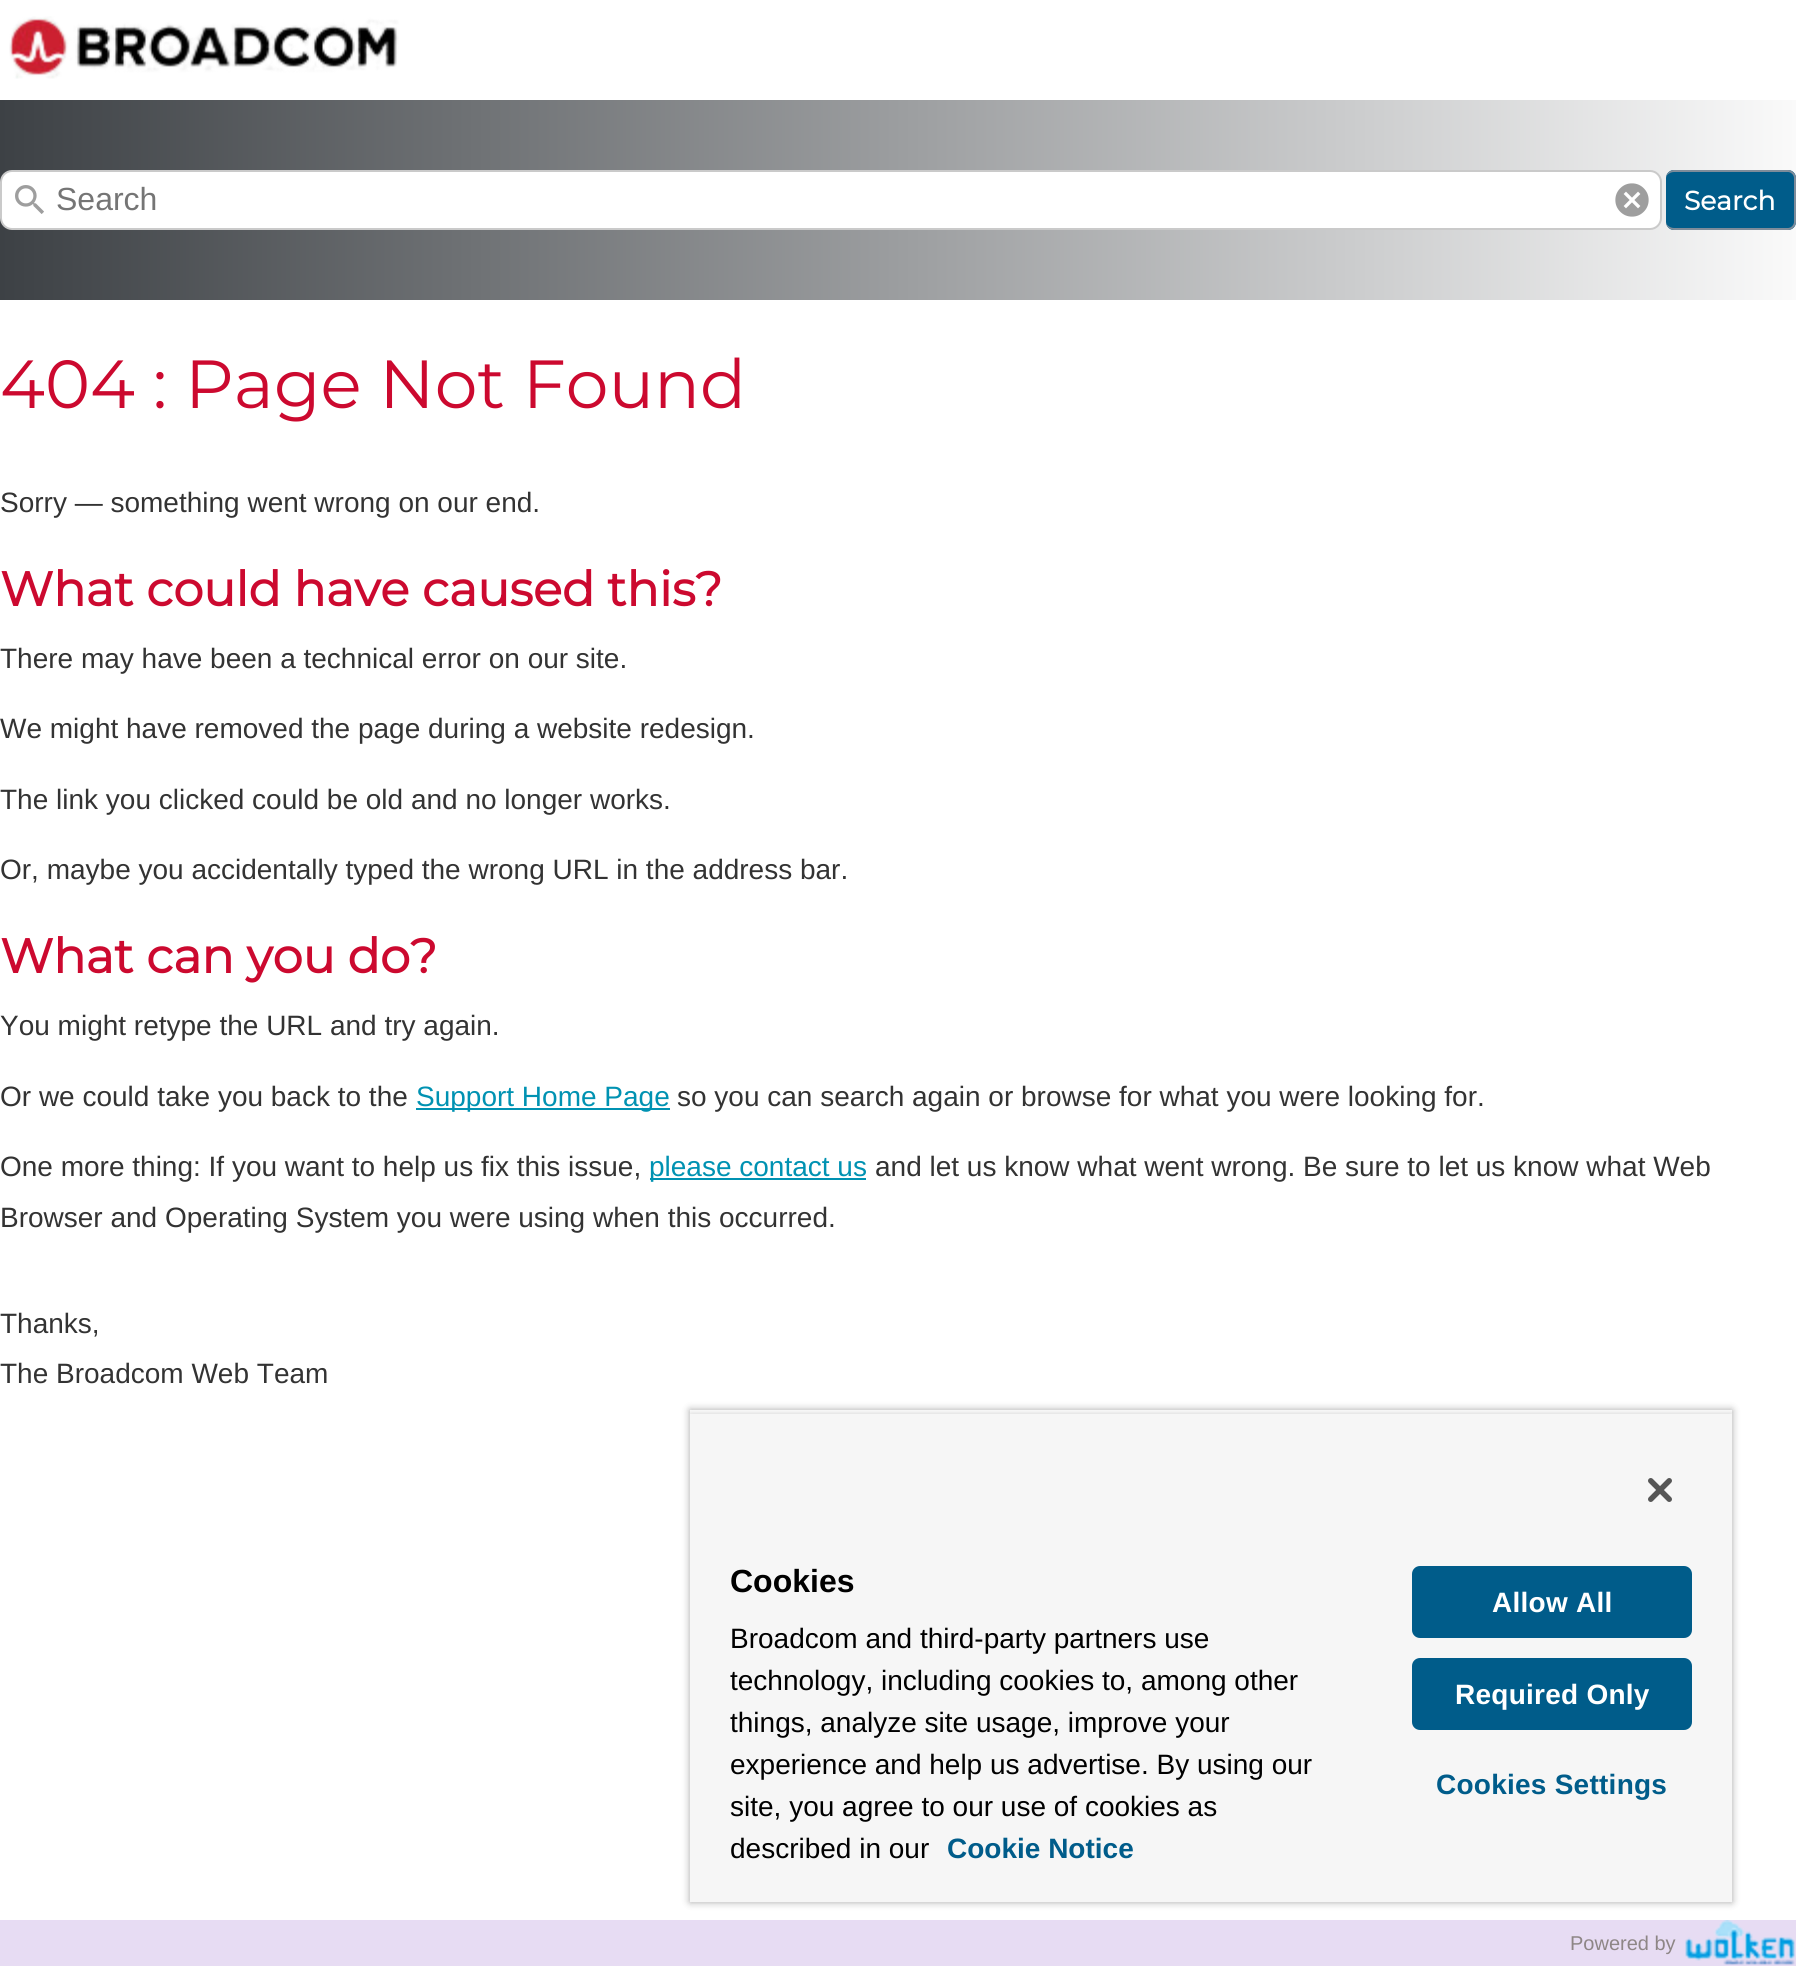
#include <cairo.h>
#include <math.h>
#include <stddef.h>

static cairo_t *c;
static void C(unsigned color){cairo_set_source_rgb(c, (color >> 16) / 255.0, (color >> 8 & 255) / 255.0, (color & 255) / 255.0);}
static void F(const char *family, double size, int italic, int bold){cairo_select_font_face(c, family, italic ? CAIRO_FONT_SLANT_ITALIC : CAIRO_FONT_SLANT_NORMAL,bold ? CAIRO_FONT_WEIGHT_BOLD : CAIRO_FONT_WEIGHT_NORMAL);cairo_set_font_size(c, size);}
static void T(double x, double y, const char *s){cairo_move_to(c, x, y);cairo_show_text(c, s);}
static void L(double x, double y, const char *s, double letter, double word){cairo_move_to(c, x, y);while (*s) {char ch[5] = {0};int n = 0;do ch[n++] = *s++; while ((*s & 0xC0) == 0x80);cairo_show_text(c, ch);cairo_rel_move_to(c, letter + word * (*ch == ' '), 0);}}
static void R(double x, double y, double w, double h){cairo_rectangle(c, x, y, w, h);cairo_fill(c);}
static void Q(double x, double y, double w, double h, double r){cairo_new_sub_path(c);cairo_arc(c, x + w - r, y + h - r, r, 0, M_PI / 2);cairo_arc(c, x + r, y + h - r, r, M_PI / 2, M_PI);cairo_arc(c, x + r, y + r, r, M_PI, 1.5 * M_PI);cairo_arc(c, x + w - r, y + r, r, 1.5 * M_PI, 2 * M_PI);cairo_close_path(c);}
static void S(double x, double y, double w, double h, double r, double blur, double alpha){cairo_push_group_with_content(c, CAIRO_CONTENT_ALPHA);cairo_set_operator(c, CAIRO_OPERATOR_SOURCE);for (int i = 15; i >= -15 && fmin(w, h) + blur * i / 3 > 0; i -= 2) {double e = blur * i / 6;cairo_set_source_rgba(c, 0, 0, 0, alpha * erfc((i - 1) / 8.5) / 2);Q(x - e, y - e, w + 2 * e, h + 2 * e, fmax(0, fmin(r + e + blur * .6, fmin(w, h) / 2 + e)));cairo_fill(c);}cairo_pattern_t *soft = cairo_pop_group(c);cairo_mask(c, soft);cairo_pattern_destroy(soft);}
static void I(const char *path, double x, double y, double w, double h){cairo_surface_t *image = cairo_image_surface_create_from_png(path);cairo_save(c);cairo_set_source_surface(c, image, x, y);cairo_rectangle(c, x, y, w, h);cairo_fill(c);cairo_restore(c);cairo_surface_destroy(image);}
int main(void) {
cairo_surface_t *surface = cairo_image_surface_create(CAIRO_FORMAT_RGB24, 1796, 1966);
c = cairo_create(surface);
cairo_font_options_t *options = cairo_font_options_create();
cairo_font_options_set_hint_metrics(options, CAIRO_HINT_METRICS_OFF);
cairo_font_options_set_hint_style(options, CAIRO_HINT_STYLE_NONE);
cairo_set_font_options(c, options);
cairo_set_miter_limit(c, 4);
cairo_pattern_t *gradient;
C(0xffffff);
cairo_paint(c);
I("1.png",9,16,390,63);
gradient = cairo_pattern_create_linear(0,200,1796,200);
cairo_pattern_add_color_stop_rgba(gradient,0,0.239,0.255,0.271,1);
cairo_pattern_add_color_stop_rgba(gradient,1,0.98,0.98,0.98,1);
cairo_set_source(c,gradient);
cairo_pattern_destroy(gradient);
R(0,100,1796,200);
C(0xffffff);
Q(1,171,1660,58,11);
cairo_fill_preserve(c);
C(0xcacaca);
cairo_stroke(c);
I("2.png",15,185,29,29);
F("Liberation Sans",32,0,0);
C(0x757575);
T(56,210,"Search");
I("3.png",1615,183,34,34);
C(0x005c8a);
Q(1666,170,130,60,8);
cairo_fill(c);
C(0x7e8c9a);
cairo_set_fill_rule(c,CAIRO_FILL_RULE_EVEN_ODD);
cairo_new_path(c);
cairo_move_to(c,1674,170);
cairo_line_to(c,1788,170);
cairo_curve_to(c,1792,170,1796,174,1796,178);
cairo_line_to(c,1796,222);
cairo_curve_to(c,1796,226,1792,230,1788,230);
cairo_line_to(c,1674,230);
cairo_curve_to(c,1670,230,1666,226,1666,222);
cairo_line_to(c,1666,178);
cairo_curve_to(c,1666,174,1670,170,1674,170);
cairo_close_path(c);
cairo_move_to(c,1674,172);
cairo_line_to(c,1788,172);
cairo_curve_to(c,1791,172,1794,175,1794,178);
cairo_line_to(c,1794,222);
cairo_curve_to(c,1794,225,1791,228,1788,228);
cairo_line_to(c,1674,228);
cairo_curve_to(c,1670,228,1666,225,1666,222);
cairo_line_to(c,1666,178);
cairo_curve_to(c,1666,175,1670,172,1674,172);
cairo_close_path(c);
cairo_fill(c);
F("Montserrat",26.5,0,1);
C(0xffffff);
T(1684,210,"Search");
F("Montserrat Thin",68,0,0);
C(0xcc092f);
T(0,408,"404 : Page Not Found");
F("Liberation Sans",28,0,0);
C(0x333333);
T(0,512,"Sorry — something went wrong on our end.");
F("Montserrat",48,0,1);
C(0xcc092f);
T(0,606,"What could have caused this?");
F("Liberation Sans",28,0,0);
C(0x333333);
T(0,668,"There may have been a technical error on our site.");
T(0,738,"We might have removed the page during a website redesign.");
T(0,809,"The link you clicked could be old and no longer works.");
T(0,879,"Or, maybe you accidentally typed the wrong URL in the address bar.");
F("Montserrat",48,0,1);
C(0xcc092f);
T(0,973,"What can you do?");
F("Liberation Sans",28,0,0);
C(0x333333);
T(0,1035,"You might retype the URL and try again.");
T(0,1106,"Or we could take you back to the");
C(0x0092b2);
R(416,1108,254,2);
T(416,1106,"Support Home Page");
C(0x333333);
T(677,1106,"so you can search again or browse for what you were looking for.");
T(0,1176,"One more thing: If you want to help us fix this issue,");
C(0x0092b2);
R(650,1178,216,2);
T(649,1176,"please contact us");
C(0x333333);
T(875,1176,"and let us know what went wrong. Be sure to let us know what Web");
T(0,1227,"Browser and Operating System you were using when this occurred.");
T(0,1333,"Thanks,");
T(0,1383,"The Broadcom Web Team");
cairo_save(c);
cairo_new_path(c);
cairo_move_to(c,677,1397);
cairo_line_to(c,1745,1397);
cairo_line_to(c,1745,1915);
cairo_line_to(c,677,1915);
cairo_close_path(c);
cairo_move_to(c,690,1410);
cairo_line_to(c,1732,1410);
cairo_line_to(c,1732,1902);
cairo_line_to(c,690,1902);
cairo_close_path(c);
cairo_clip(c);
C(0x000000);
S(690,1410,1042,492,0,4,.35);
cairo_restore(c);
cairo_save(c);
cairo_set_fill_rule(c,CAIRO_FILL_RULE_WINDING);
cairo_rectangle(c,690,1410,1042,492);
cairo_clip(c);
C(0x000000);
S(690,1414,1042,488,0,4,.2);
cairo_restore(c);
C(0xf6f6f6);
R(690,1414,1042,488);
I("4.png",1648,1478,24,24);
F("Liberation Sans",32,0,1);
C(0x000000);
T(730,1592,"Cookies");
F("Liberation Sans",28,0,0);
T(730,1648,"Broadcom and third-party partners use");
T(730,1690,"technology, including cookies to, among other");
T(730,1732,"things, analyze site usage, improve your");
T(730,1774,"experience and help us advertise. By using our");
T(730,1816,"site, you agree to our use of cookies as");
T(730,1858,"described in our");
F("Liberation Sans",28,0,1);
C(0x005c8a);
T(947,1858,"Cookie Notice");
Q(1413,1567,278,70,7);
cairo_fill_preserve(c);
cairo_stroke(c);
C(0xffffff);
L(1492,1612,"Allow All",.25,0);
C(0x005c8a);
Q(1413,1659,278,70,7);
cairo_fill_preserve(c);
cairo_stroke(c);
C(0xffffff);
L(1455,1704,"Required Only",.25,0);
C(0x005c8a);
L(1436,1794,"Cookies Settings",.25,0);
C(0xe7dcf3);
R(0,1920,1796,46);
F("Liberation Sans",20,0,0);
C(0x8e8686);
T(1570,1950,"Powered by");
I("5.png",1685,1920,110,45);
cairo_surface_write_to_png(surface, "o.png");
cairo_font_options_destroy(options);
cairo_destroy(c);
cairo_surface_destroy(surface);
return 0;
}
